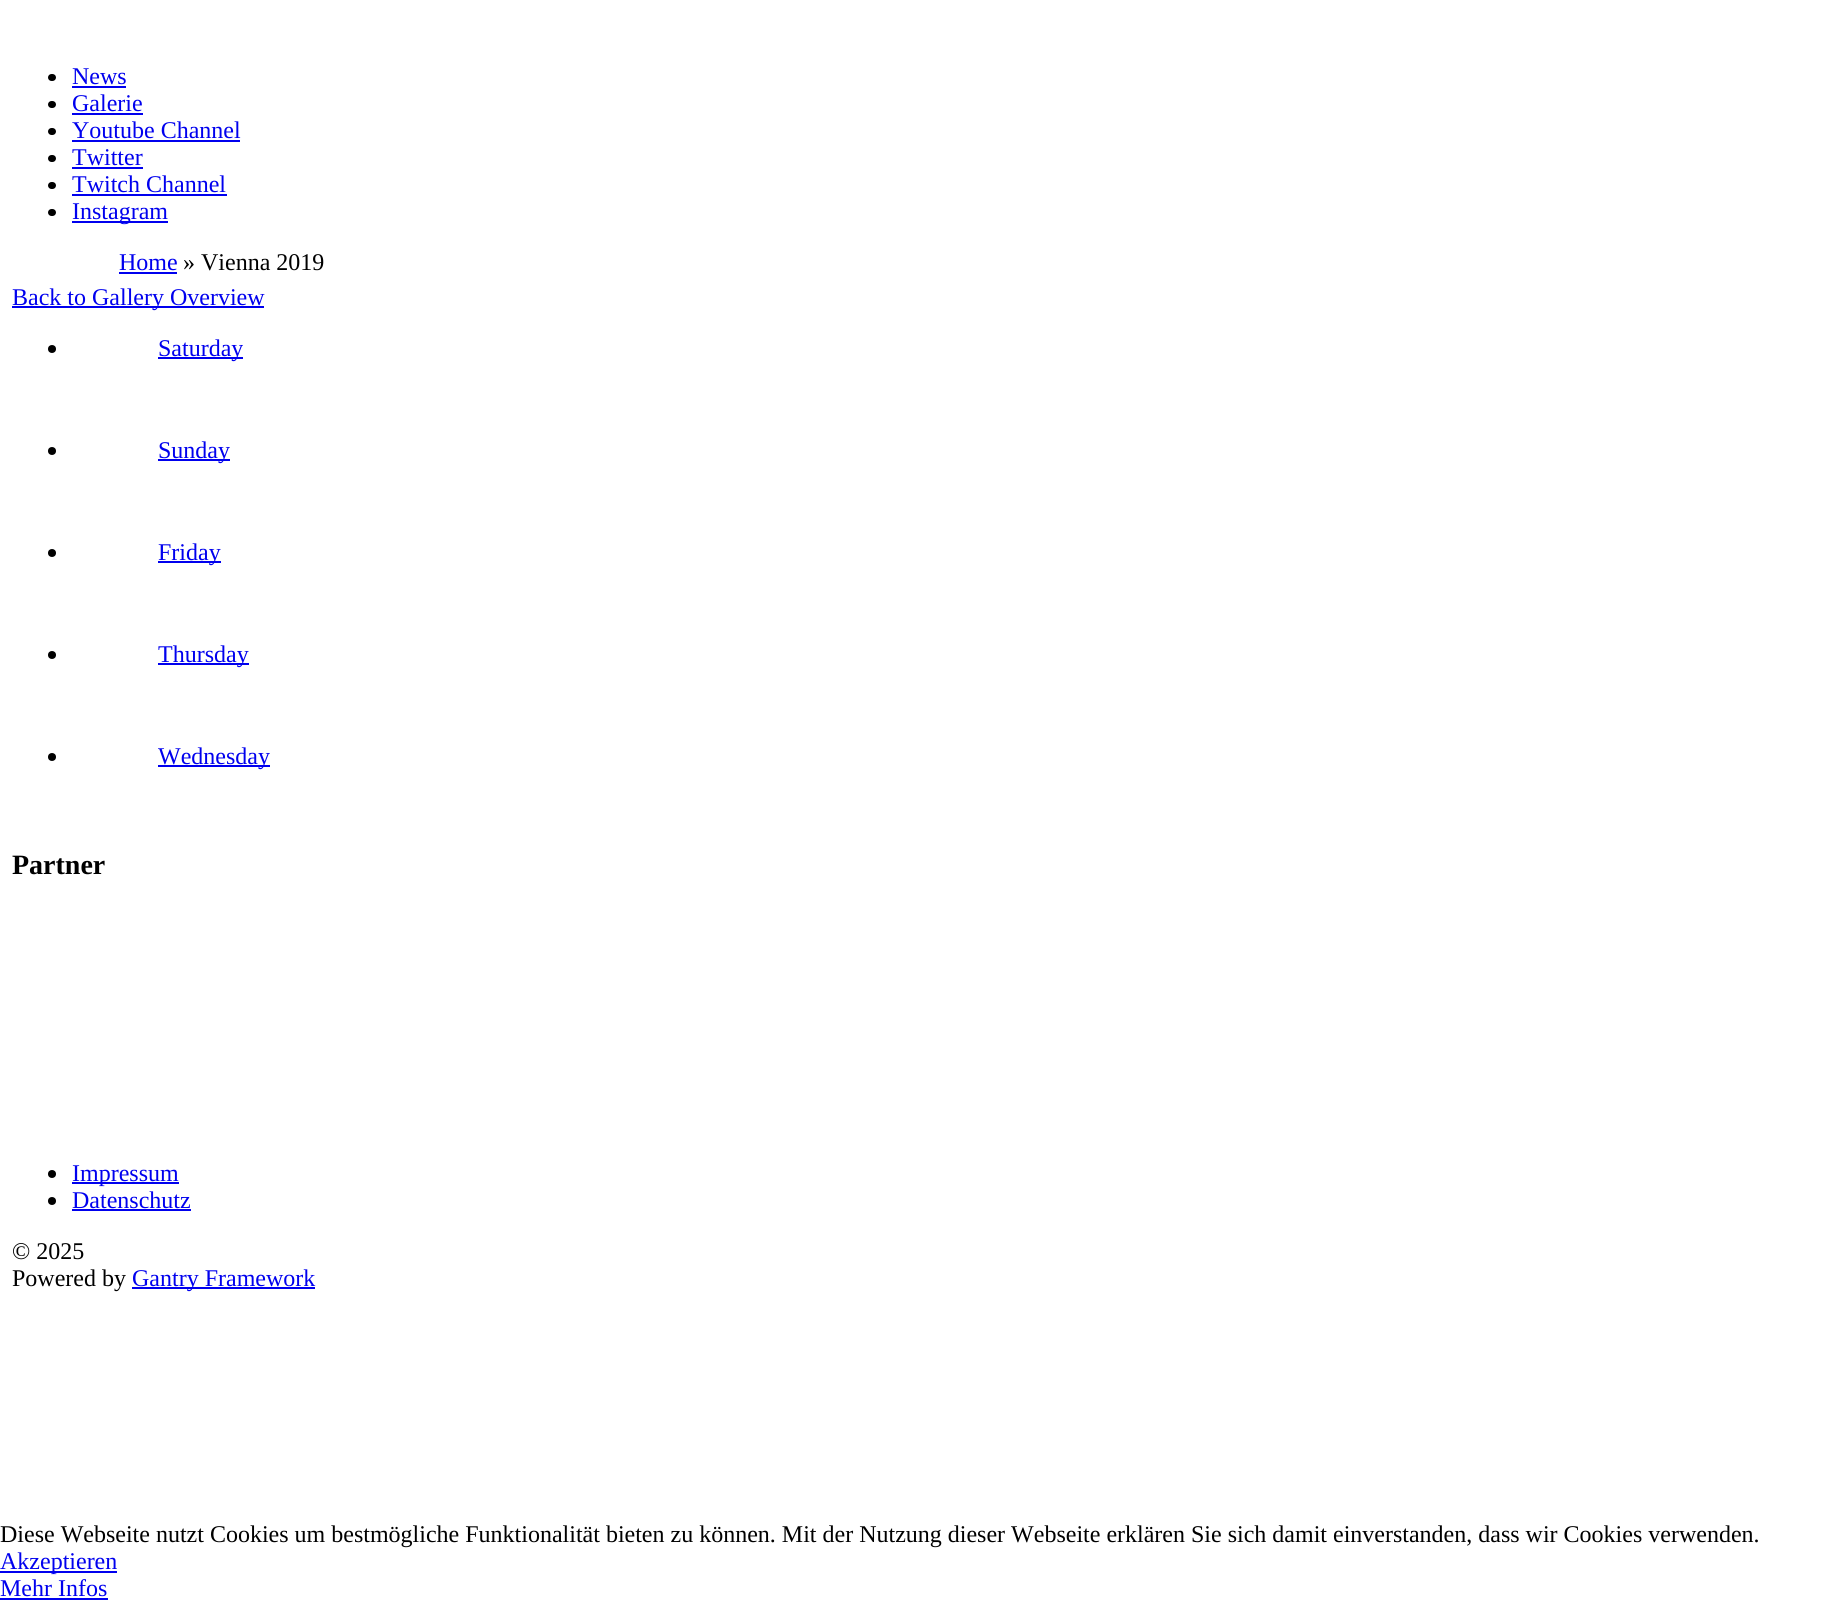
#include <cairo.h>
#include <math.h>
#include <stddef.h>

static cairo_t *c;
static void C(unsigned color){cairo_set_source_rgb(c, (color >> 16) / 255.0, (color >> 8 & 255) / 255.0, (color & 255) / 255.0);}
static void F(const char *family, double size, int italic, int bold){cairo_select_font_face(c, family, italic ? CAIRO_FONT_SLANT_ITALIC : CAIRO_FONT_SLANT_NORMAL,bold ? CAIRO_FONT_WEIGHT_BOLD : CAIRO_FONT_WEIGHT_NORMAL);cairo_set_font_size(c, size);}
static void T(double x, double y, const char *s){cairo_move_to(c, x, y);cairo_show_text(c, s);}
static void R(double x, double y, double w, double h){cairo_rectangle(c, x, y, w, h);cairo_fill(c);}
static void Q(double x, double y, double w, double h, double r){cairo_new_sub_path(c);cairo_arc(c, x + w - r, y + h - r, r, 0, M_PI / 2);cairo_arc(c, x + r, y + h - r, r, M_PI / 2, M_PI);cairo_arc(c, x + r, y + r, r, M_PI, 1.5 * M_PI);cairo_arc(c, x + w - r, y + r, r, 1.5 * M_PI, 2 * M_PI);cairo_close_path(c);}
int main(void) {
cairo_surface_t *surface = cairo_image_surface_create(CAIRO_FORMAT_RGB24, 1828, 1601);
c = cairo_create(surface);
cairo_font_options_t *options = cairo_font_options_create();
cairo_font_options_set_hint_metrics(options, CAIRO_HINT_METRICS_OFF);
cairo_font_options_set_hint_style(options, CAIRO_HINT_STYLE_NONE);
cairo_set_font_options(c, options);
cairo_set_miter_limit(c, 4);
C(0xffffff);
cairo_paint(c);
C(0x000000);
Q(48,74,8,7,3.5);
cairo_fill(c);
F("Liberation Serif",24,0,0);
C(0x0000ee);
T(72,84,"News");
R(72,86,54,2);
C(0x000000);
Q(48,101,8,7,3.5);
cairo_fill(c);
C(0x0000ee);
T(72,111,"Galerie");
R(72,113,71,2);
C(0x000000);
Q(48,128,8,7,3.5);
cairo_fill(c);
C(0x0000ee);
T(72,138,"Youtube Channel");
R(72,140,168,2);
C(0x000000);
Q(48,155,8,7,3.5);
cairo_fill(c);
C(0x0000ee);
T(72,165,"Twitter");
R(72,167,71,2);
C(0x000000);
Q(48,182,8,7,3.5);
cairo_fill(c);
C(0x0000ee);
T(72,192,"Twitch Channel");
R(72,194,155,2);
C(0x000000);
Q(48,209,8,7,3.5);
cairo_fill(c);
C(0x0000ee);
R(72,221,96,2);
T(72,219,"Instagram");
T(119,270,"Home");
R(119,272,58,2);
C(0x000000);
T(183,270,"» Vienna 2019");
C(0x0000ee);
R(12,306,252,2);
T(12,305,"Back to Gallery Overview");
C(0x000000);
cairo_new_path(c);
cairo_arc(c,52,349,4,0,2 * M_PI);
cairo_fill(c);
C(0x0000ee);
R(158,357,85,2);
T(158,356,"Saturday");
C(0x000000);
cairo_new_path(c);
cairo_arc(c,52,451,4,0,2 * M_PI);
cairo_fill(c);
C(0x0000ee);
R(158,459,72,2);
T(158,458,"Sunday");
C(0x000000);
cairo_new_path(c);
cairo_arc(c,52,553,4,0,2 * M_PI);
cairo_fill(c);
C(0x0000ee);
R(158,561,63,2);
T(158,560,"Friday");
C(0x000000);
cairo_new_path(c);
cairo_arc(c,52,655,4,0,2 * M_PI);
cairo_fill(c);
C(0x0000ee);
R(158,663,91,2);
T(158,662,"Thursday");
C(0x000000);
cairo_new_path(c);
cairo_arc(c,52,757,4,0,2 * M_PI);
cairo_fill(c);
C(0x0000ee);
R(158,765,112,2);
T(158,764,"Wednesday");
F("Liberation Serif",28,0,1);
C(0x000000);
T(12,874,"Partner");
cairo_new_path(c);
cairo_arc(c,52,1174,4,0,2 * M_PI);
cairo_fill(c);
C(0x0000ee);
R(72,1182,107,2);
F("Liberation Serif",24,0,0);
T(72,1181,"Impressum");
C(0x000000);
cairo_new_path(c);
cairo_arc(c,52,1201,4,0,2 * M_PI);
cairo_fill(c);
C(0x0000ee);
T(72,1208,"Datenschutz");
R(72,1209,119,2);
C(0x000000);
T(12,1259,"© 2025");
T(12,1286,"Powered by");
C(0x0000ee);
R(132,1287,183,2);
T(132,1286,"Gantry Framework");
C(0x000000);
T(0,1542,"Diese Webseite nutzt Cookies um bestmögliche Funktionalität bieten zu können. Mit der Nutzung dieser Webseite erklären Sie sich damit einverstanden, dass wir Cookies verwenden.");
C(0x0000ee);
R(0,1571,117,2);
T(0,1569,"Akzeptieren");
T(0,1596,"Mehr Infos");
R(0,1598,108,2);
cairo_surface_write_to_png(surface, "o.png");
cairo_font_options_destroy(options);
cairo_destroy(c);
cairo_surface_destroy(surface);
return 0;
}
